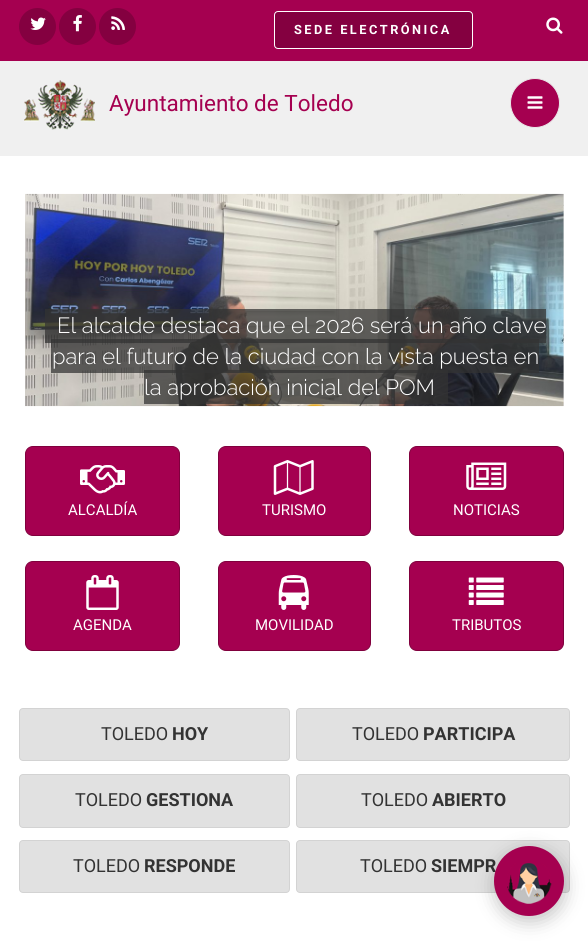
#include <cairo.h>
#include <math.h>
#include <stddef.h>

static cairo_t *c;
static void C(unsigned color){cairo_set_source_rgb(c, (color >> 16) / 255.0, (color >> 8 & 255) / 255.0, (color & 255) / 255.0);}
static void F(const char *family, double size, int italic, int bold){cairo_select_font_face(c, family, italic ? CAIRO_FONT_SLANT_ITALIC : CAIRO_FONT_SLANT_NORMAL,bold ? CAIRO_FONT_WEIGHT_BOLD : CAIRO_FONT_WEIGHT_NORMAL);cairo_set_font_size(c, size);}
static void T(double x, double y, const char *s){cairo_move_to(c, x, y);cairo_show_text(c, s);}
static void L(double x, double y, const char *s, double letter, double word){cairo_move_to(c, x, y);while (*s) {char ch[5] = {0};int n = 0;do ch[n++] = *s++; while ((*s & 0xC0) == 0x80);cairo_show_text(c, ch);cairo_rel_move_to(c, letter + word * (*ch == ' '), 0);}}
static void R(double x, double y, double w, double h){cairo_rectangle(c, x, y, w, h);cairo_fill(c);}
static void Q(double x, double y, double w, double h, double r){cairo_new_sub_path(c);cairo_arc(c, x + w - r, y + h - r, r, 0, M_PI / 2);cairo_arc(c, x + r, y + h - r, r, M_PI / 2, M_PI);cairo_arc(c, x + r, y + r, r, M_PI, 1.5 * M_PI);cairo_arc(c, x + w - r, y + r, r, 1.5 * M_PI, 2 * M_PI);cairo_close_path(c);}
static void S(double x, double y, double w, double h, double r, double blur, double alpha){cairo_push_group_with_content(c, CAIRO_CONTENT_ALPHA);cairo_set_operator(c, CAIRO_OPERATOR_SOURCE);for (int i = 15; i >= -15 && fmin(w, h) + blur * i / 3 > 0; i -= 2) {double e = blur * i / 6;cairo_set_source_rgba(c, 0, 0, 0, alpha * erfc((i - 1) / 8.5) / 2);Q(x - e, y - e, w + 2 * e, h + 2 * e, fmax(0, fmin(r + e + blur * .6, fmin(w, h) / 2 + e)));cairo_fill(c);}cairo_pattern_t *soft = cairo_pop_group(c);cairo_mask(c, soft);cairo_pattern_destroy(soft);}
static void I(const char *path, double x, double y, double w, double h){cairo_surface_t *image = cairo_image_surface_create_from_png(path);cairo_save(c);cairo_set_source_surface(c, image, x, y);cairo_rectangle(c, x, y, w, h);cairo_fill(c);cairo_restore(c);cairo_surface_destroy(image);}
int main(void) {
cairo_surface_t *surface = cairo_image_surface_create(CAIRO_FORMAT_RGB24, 588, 941);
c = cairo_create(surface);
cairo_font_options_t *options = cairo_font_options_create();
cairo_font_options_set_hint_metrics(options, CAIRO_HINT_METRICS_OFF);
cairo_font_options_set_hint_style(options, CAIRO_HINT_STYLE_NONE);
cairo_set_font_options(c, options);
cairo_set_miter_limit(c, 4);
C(0xffffff);
cairo_paint(c);
C(0xa50050);
R(0,0,588,61);
C(0x840040);
cairo_arc(c,37.5,26.5,18.5,0,2 * M_PI);
cairo_fill(c);
I("1.png",30,17,16,13);
cairo_arc(c,77.5,26.5,18.5,0,2 * M_PI);
cairo_fill(c);
I("2.png",73,15,9,17);
cairo_arc(c,117.5,26.5,18.5,0,2 * M_PI);
cairo_fill(c);
I("3.png",111,16,14,14);
Q(274.5,11.5,198,37,3.5);
cairo_fill_preserve(c);
C(0xffffff);
cairo_set_line_width(c,1);
cairo_stroke(c);
F("Roboto",12.75,0,1);
L(294,34,"SEDE ELECTRÓNICA",2.5,0);
I("4.png",546,17,17,17);
C(0xf0f0f0);
R(0,61,588,95);
I("5.png",24,80,71,50);
F("Roboto",22.5,0,0);
C(0xa50050);
T(109,111,"Ayuntamiento de Toledo");
cairo_new_path(c);
cairo_arc(c,535,103,24.5,0,2 * M_PI);
cairo_fill_preserve(c);
C(0xe9e9e9);
cairo_stroke(c);
I("6.png",527,96,16,13);
C(0xefefef);
R(563,194,1,212);
I("7.png",25,193,539,214);
cairo_set_source_rgba(c,0.2,0.2,0.2,0.73);
R(45,309,501,34);
F("Raleway Light",22,0,0);
C(0xffffff);
T(57,333,"El alcalde destaca que el 2026 será un año clave");
cairo_set_source_rgba(c,0.2,0.2,0.2,0.73);
R(51,339,488,34);
C(0xffffff);
T(52,364,"para el futuro de la ciudad con la vista puesta en");
cairo_set_source_rgba(c,0.2,0.2,0.2,0.73);
R(144,370,304,34);
C(0xffffff);
T(144,395,"la aprobación inicial del POM");
C(0xa50050);
Q(25.5,446.5,154,89,7.5);
cairo_fill_preserve(c);
C(0x80003d);
cairo_stroke(c);
I("8.png",80,465,45,29);
F("Roboto",15,0,0);
C(0xffffff);
T(68,515,"ALCALDÍA");
C(0xa50050);
Q(218.5,446.5,152,89,7.5);
cairo_fill_preserve(c);
C(0x80003d);
cairo_stroke(c);
I("9.png",273,460,41,35);
C(0xffffff);
T(262,515,"TURISMO");
C(0xa50050);
Q(409.5,446.5,154,89,7.5);
cairo_fill_preserve(c);
C(0x80003d);
cairo_stroke(c);
I("10.png",466,462,41,28);
C(0xffffff);
T(453,515,"NOTICIAS");
C(0xa50050);
Q(25.5,561.5,154,89,7.5);
cairo_fill_preserve(c);
C(0x80003d);
cairo_stroke(c);
I("11.png",86,575,33,35);
C(0xffffff);
T(73,630,"AGENDA");
C(0xa50050);
Q(218.5,561.5,152,89,7.5);
cairo_fill_preserve(c);
C(0x80003d);
cairo_stroke(c);
I("12.png",278,575,31,35);
C(0xffffff);
T(255,630,"MOVILIDAD");
C(0xa50050);
Q(409.5,561.5,154,89,7.5);
cairo_fill_preserve(c);
C(0x80003d);
cairo_stroke(c);
I("13.png",468,577,36,28);
C(0xffffff);
T(452,630,"TRIBUTOS");
C(0xe1e1e1);
Q(19.5,708.5,270,52,3.5);
cairo_fill_preserve(c);
C(0xd3d3d3);
cairo_stroke(c);
F("Roboto",18,0,0);
C(0x333333);
T(101,740,"TOLEDO");
F("Roboto",18,0,1);
T(172,740,"HOY");
C(0xe1e1e1);
Q(19.5,774.5,270,53,3.5);
cairo_fill_preserve(c);
C(0xd3d3d3);
cairo_stroke(c);
F("Roboto",18,0,0);
C(0x333333);
T(75,806,"TOLEDO");
F("Roboto",18,0,1);
T(146,806,"GESTIONA");
C(0xe1e1e1);
Q(19.5,840.5,270,52,3.5);
cairo_fill_preserve(c);
C(0xd3d3d3);
cairo_stroke(c);
F("Roboto",18,0,0);
C(0x333333);
T(73,872,"TOLEDO");
F("Roboto",18,0,1);
T(144,872,"RESPONDE");
C(0xe1e1e1);
Q(296.5,708.5,273,52,3.5);
cairo_fill_preserve(c);
C(0xd3d3d3);
cairo_stroke(c);
F("Roboto",18,0,0);
C(0x333333);
T(352,740,"TOLEDO");
F("Roboto",18,0,1);
T(423,740,"PARTICIPA");
C(0xe1e1e1);
Q(296.5,774.5,273,53,3.5);
cairo_fill_preserve(c);
C(0xd3d3d3);
cairo_stroke(c);
F("Roboto",18,0,0);
C(0x333333);
T(361,806,"TOLEDO");
F("Roboto",18,0,1);
T(432,806,"ABIERTO");
C(0xe1e1e1);
Q(296.5,840.5,273,52,3.5);
cairo_fill_preserve(c);
C(0xd3d3d3);
cairo_stroke(c);
F("Roboto",18,0,0);
C(0x333333);
T(360,872,"TOLEDO");
F("Roboto",18,0,1);
T(431,872,"SIEMPR");
C(0x000000);
S(495,851,70,70,35,9.5,.24);
C(0xa50050);
cairo_arc(c,529,881,35,0,2 * M_PI);
cairo_fill(c);
I("14.png",507,863,45,41);
cairo_surface_write_to_png(surface, "o.png");
cairo_font_options_destroy(options);
cairo_destroy(c);
cairo_surface_destroy(surface);
return 0;
}
